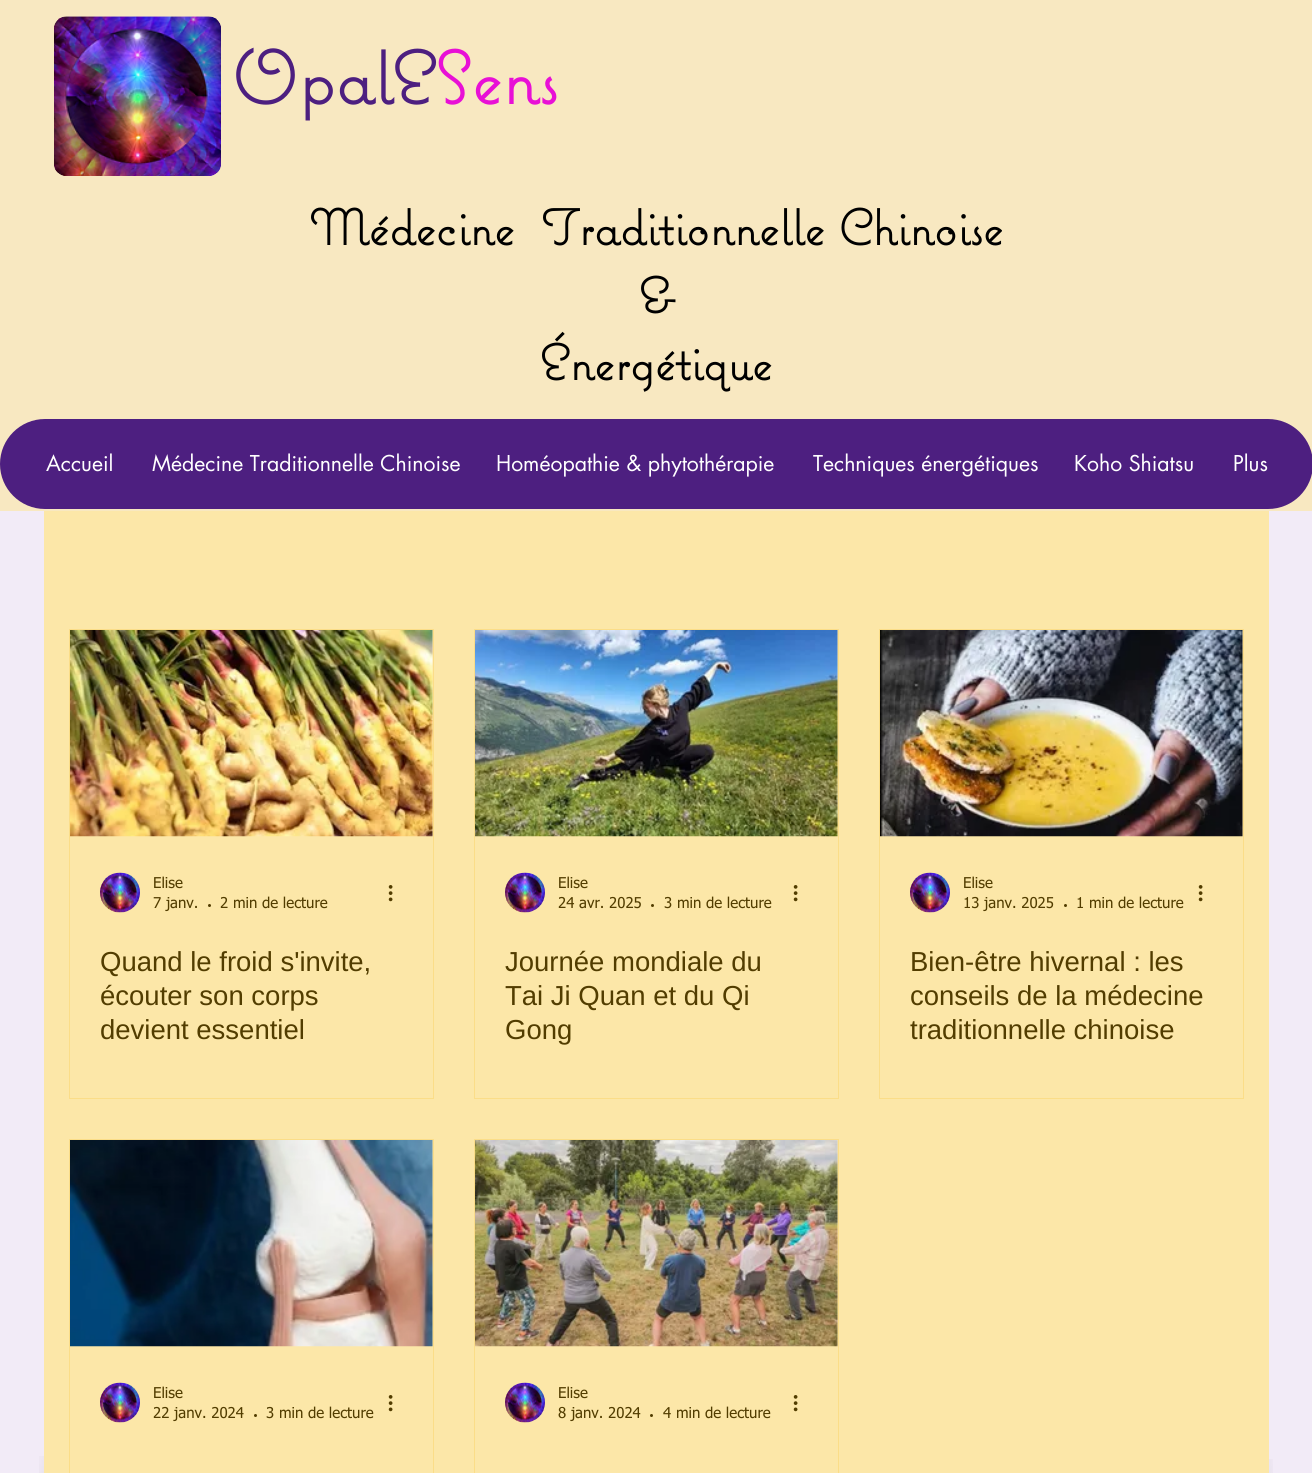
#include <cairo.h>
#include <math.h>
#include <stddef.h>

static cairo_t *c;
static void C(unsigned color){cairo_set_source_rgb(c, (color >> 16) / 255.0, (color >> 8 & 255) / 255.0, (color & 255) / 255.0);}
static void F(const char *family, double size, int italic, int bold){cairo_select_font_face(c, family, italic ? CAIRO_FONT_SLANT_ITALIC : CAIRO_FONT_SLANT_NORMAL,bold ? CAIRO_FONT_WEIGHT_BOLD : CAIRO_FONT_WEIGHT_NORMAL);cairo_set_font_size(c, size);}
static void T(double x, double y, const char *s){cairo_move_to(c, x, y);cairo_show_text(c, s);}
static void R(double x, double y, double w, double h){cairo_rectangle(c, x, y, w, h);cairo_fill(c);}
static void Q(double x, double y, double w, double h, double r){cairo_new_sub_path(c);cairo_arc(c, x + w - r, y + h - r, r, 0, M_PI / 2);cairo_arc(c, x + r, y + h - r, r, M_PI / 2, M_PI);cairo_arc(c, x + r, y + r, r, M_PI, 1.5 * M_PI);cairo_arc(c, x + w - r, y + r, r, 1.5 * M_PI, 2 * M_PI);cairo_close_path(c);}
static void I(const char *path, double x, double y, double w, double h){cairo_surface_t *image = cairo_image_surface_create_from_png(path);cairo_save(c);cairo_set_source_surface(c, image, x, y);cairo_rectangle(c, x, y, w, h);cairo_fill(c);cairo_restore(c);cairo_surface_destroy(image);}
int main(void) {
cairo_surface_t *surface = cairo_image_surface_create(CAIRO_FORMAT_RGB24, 1312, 1473);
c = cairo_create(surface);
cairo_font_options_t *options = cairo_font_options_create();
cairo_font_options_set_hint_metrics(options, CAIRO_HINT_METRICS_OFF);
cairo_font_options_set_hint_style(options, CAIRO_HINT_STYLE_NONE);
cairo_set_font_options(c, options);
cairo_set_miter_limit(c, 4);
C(0xf2ebf7);
cairo_paint(c);
C(0xf8e8c1);
R(0,0,1312,511);
I("1.png",54,16,167,160);
F("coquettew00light",74,0,1);
C(0x4d1f80);
T(231,104,"OpalE");
C(0xe810d6);
T(435,104,"Sens");
F("coquettew00light",50,0,1);
C(0x000000);
T(309,245,"Médecine");
T(541,245,"Traditionnelle Chinoise");
T(639,313,"&");
T(540,380,"Énergétique");
C(0x4d1f80);
Q(0,419,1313,90,45);
cairo_fill(c);
F("futura",21.25,0,0);
C(0xffffff);
T(46,471,"Accueil");
T(152,471,"Médecine Traditionnelle Chinoise");
T(496,471,"Homéopathie & phytothérapie");
T(813,471,"Techniques énergétiques");
T(1074,471,"Koho Shiatsu");
T(1233,471,"Plus");
C(0xfce7a8);
R(44,511,1225,962);
cairo_rectangle(c,69.5,629.5,364,469);
C(0xfbdd88);
cairo_set_line_width(c,1);
cairo_stroke(c);
I("2.png",70,630,363,207);
I("3.png",100,872,40,41);
F("tahoma",15,0,0);
C(0x523d00);
T(153,888,"Elise");
T(153,908,"7 janv.");
cairo_new_path(c);
cairo_arc(c,209.5,905.5,1.5,0,2 * M_PI);
cairo_fill(c);
T(220,908,"2 min de lecture");
I("4.png",388,885,5,17);
F("Liberation Sans",27.5,0,0);
T(100,971,"Quand le froid s'invite,");
T(100,1005,"écouter son corps");
T(100,1039,"devient essentiel");
cairo_rectangle(c,474.5,629.5,364,469);
C(0xfbdd88);
cairo_stroke(c);
I("5.png",475,630,363,207);
I("6.png",505,872,40,41);
F("tahoma",15,0,0);
C(0x523d00);
T(558,888,"Elise");
T(558,908,"24 avr. 2025");
cairo_new_path(c);
cairo_arc(c,652.5,905.5,1.5,0,2 * M_PI);
cairo_fill(c);
T(664,908,"3 min de lecture");
I("4.png",793,885,5,17);
F("Liberation Sans",27.5,0,0);
T(505,971,"Journée mondiale du");
T(505,1005,"Tai Ji Quan et du Qi");
T(505,1039,"Gong");
cairo_rectangle(c,879.5,629.5,364,469);
C(0xfbdd88);
cairo_stroke(c);
I("7.png",880,630,363,207);
I("3.png",910,872,40,41);
F("tahoma",15,0,0);
C(0x523d00);
T(963,888,"Elise");
T(963,908,"13 janv. 2025");
cairo_new_path(c);
cairo_arc(c,1065.5,905.5,1.5,0,2 * M_PI);
cairo_fill(c);
T(1076,908,"1 min de lecture");
I("4.png",1198,885,5,17);
F("Liberation Sans",27.5,0,0);
T(910,971,"Bien-être hivernal : les");
T(910,1005,"conseils de la médecine");
T(910,1039,"traditionnelle chinoise");
cairo_rectangle(c,69.5,1139.5,364,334);
C(0xfbdd88);
cairo_stroke(c);
I("8.png",70,1140,363,207);
I("3.png",100,1382,40,41);
F("tahoma",15,0,0);
C(0x523d00);
T(153,1398,"Elise");
T(153,1418,"22 janv. 2024");
cairo_new_path(c);
cairo_arc(c,255.5,1415.5,1.5,0,2 * M_PI);
cairo_fill(c);
T(266,1418,"3 min de lecture");
I("4.png",388,1395,5,17);
cairo_rectangle(c,474.5,1139.5,364,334);
C(0xfbdd88);
cairo_stroke(c);
I("9.png",475,1140,363,207);
I("6.png",505,1382,40,41);
C(0x523d00);
T(558,1398,"Elise");
T(558,1418,"8 janv. 2024");
cairo_new_path(c);
cairo_arc(c,651.5,1415.5,1.5,0,2 * M_PI);
cairo_fill(c);
T(663,1418,"4 min de lecture");
I("4.png",793,1395,5,17);
I("10.png",39,1456,5,17);
I("11.png",1269,1459,4,14);
cairo_surface_write_to_png(surface, "o.png");
cairo_font_options_destroy(options);
cairo_destroy(c);
cairo_surface_destroy(surface);
return 0;
}
